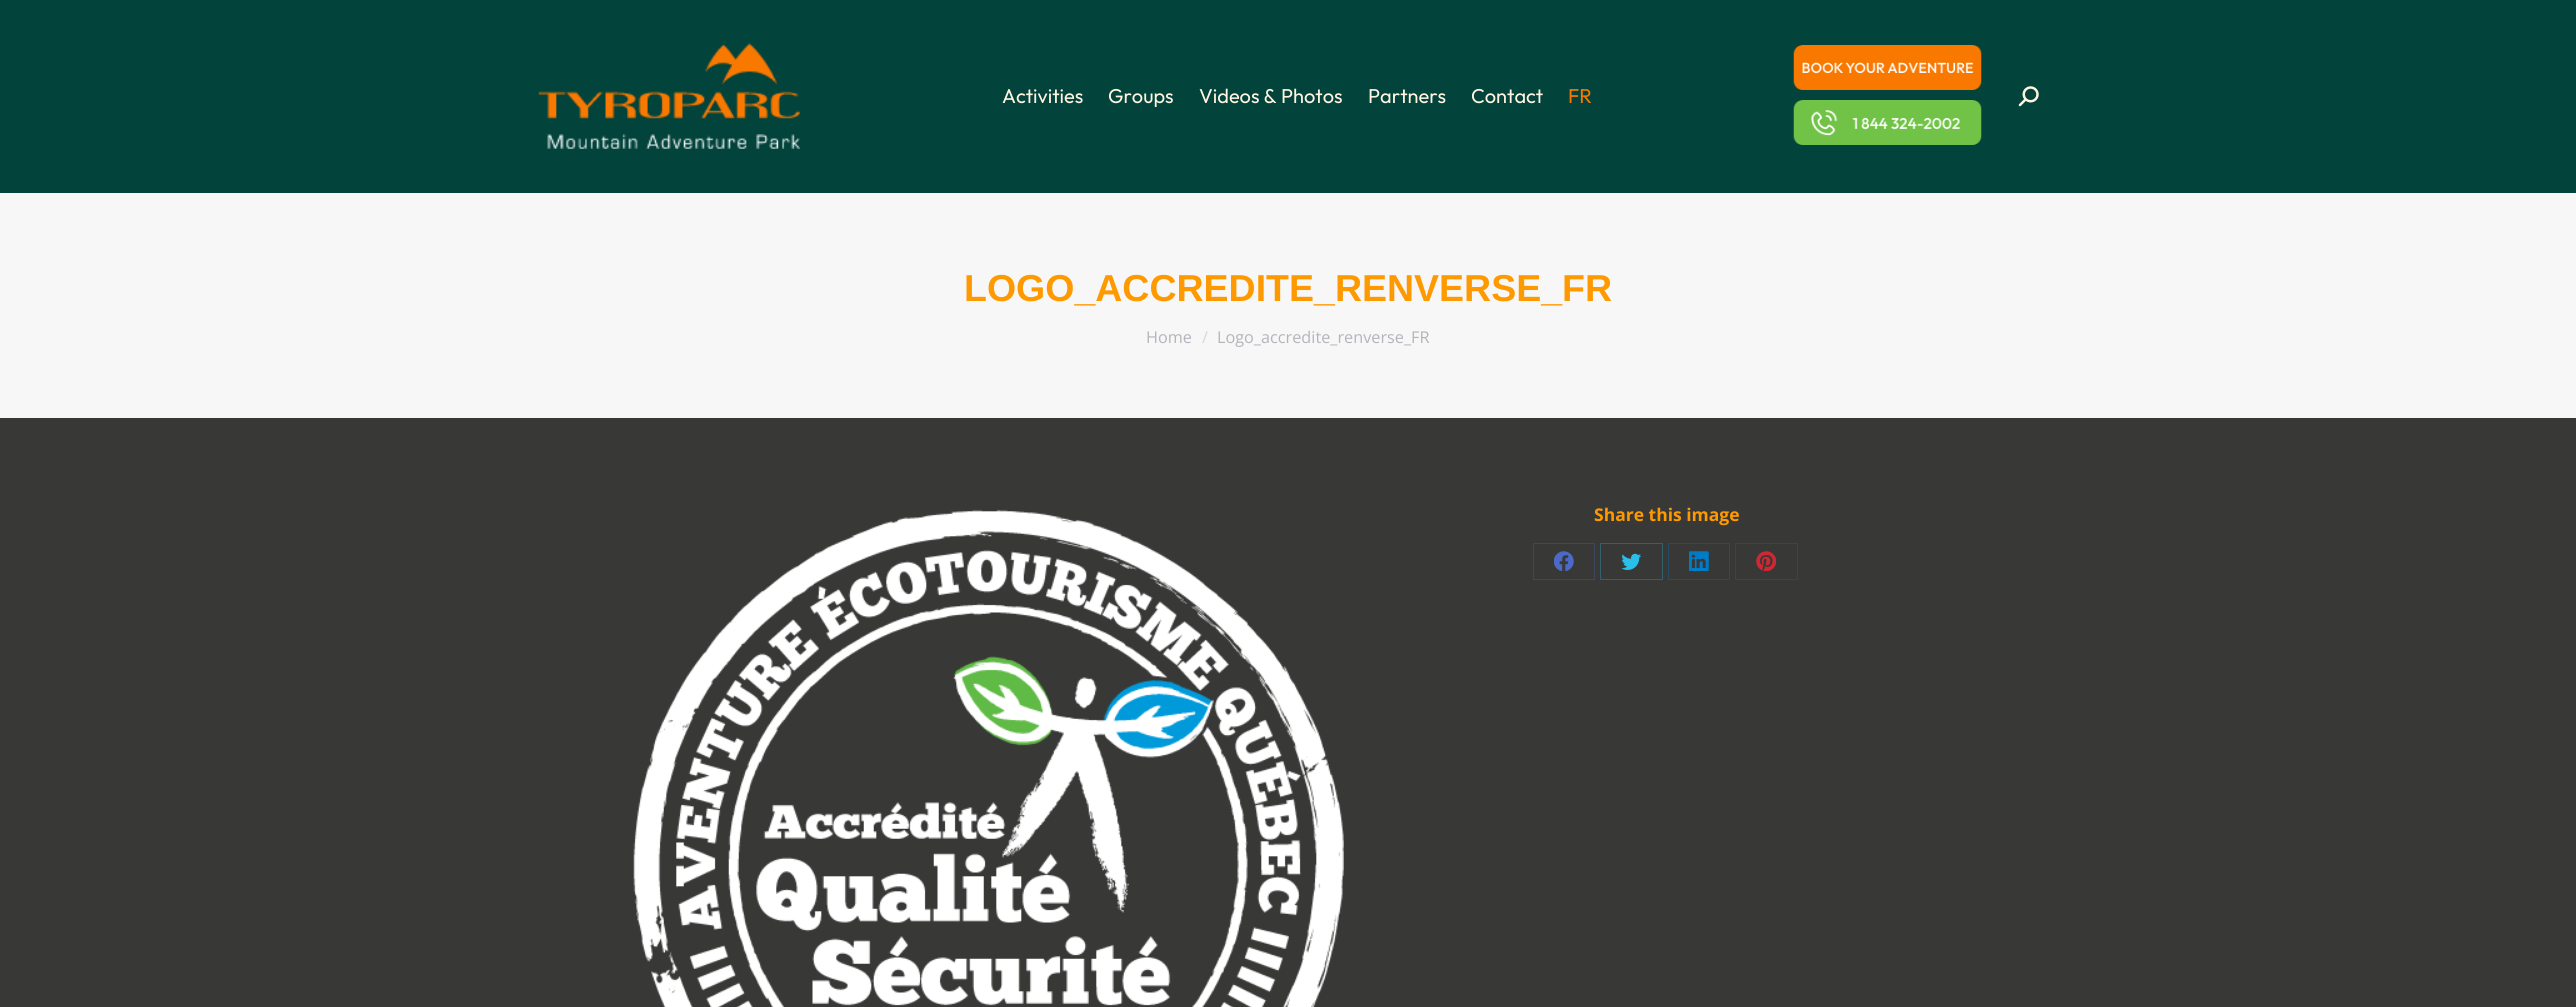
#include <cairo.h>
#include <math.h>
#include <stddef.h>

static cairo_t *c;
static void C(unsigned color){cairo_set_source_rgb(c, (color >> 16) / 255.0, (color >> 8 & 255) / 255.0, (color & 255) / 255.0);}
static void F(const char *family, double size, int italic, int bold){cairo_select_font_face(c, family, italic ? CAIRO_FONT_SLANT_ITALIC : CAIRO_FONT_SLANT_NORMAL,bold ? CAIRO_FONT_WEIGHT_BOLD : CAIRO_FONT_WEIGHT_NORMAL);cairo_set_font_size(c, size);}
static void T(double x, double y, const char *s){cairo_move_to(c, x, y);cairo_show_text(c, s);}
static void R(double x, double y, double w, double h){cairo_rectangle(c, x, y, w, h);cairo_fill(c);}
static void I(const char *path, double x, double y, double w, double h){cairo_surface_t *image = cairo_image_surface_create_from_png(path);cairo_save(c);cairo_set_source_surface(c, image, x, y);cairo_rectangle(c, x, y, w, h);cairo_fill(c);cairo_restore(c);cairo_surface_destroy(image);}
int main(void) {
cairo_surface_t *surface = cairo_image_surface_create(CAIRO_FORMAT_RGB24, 2576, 1007);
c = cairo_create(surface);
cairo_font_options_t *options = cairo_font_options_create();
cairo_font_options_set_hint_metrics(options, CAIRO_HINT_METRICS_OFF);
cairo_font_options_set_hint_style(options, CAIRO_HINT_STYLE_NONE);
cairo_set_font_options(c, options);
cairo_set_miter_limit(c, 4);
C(0x383837);
cairo_paint(c);
C(0x02433b);
R(0,0,2576,193);
I("1.png",538,43,263,106);
F("Outfit",20,0,0);
C(0xfff5e0);
T(1002,103,"Activities");
T(1108,103,"Groups");
T(1199,103,"Videos & Photos");
T(1368,103,"Partners");
T(1471,103,"Contact");
C(0xf87800);
T(1568,103,"FR");
I("2.png",1793,45,189,45);
I("3.png",1793,100,189,45);
I("4.png",2018,86,21,21);
C(0xf7f7f7);
R(0,193,2576,225);
F("Liberation Sans",37.5,0,1);
C(0xff9900);
T(964,301,"LOGO_ACCREDITE_RENVERSE_FR");
F("Open Sans",16.25,0,0);
C(0xb4b5bb);
T(1146,343,"Home");
C(0xd6d6d9);
T(1202,343,"/");
C(0xb4b5bb);
T(1217,343,"Logo_accredite_renverse_FR");
I("5.png",633,509,711,498);
F("Open Sans",17.5,0,1);
C(0xff9900);
T(1594,521,"Share this image");
cairo_rectangle(c,1533.5,543.5,61,36);
C(0x3e4762);
cairo_set_line_width(c,1);
cairo_stroke(c);
I("6.png",1554,551,20,20);
cairo_rectangle(c,1600.5,543.5,62,36);
C(0x34606d);
cairo_stroke(c);
I("7.png",1621,553,20,17);
cairo_rectangle(c,1668.5,543.5,61,36);
C(0x274c62);
cairo_stroke(c);
I("8.png",1689,551,20,20);
cairo_rectangle(c,1735.5,543.5,62,36);
C(0x653336);
cairo_stroke(c);
I("9.png",1756,551,20,20);
cairo_surface_write_to_png(surface, "o.png");
cairo_font_options_destroy(options);
cairo_destroy(c);
cairo_surface_destroy(surface);
return 0;
}
